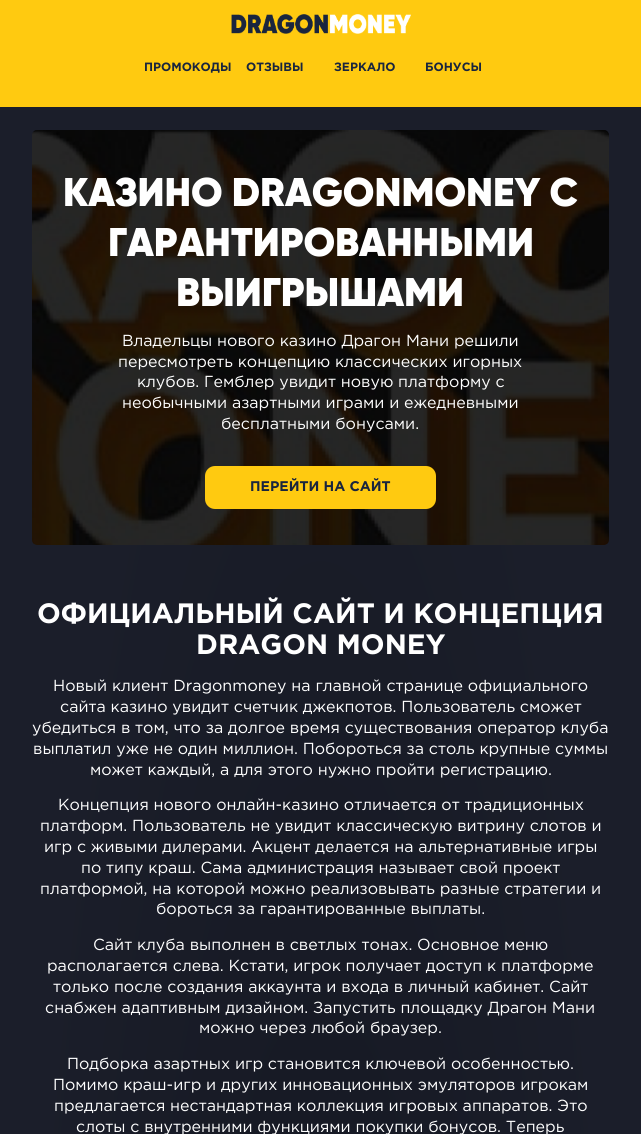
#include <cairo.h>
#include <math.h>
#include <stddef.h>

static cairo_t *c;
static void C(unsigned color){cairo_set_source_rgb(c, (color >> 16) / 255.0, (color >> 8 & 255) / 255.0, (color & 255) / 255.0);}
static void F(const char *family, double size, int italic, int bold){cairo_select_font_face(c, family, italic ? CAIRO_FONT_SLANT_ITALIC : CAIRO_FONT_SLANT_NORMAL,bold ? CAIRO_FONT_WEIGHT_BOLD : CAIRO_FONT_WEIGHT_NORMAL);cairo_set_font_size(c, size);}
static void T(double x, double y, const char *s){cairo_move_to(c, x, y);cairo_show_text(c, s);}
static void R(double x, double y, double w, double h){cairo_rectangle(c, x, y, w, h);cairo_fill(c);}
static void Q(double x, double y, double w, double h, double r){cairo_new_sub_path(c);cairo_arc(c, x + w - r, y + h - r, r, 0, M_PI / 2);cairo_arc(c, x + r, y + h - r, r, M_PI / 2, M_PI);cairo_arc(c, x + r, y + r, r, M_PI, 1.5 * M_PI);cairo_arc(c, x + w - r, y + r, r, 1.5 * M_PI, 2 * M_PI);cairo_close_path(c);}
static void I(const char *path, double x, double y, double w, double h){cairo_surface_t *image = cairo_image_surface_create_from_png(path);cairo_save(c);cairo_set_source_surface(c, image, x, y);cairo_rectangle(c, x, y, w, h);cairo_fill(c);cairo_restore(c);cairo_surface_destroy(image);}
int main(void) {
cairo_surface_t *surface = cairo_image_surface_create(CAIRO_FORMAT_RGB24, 641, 1134);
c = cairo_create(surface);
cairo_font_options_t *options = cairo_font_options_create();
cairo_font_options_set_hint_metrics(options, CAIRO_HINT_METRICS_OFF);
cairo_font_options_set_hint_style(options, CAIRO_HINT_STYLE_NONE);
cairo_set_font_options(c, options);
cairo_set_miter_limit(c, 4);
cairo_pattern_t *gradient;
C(0xffffff);
cairo_paint(c);
gradient = cairo_pattern_create_radial(0,0,0,0,0,1);
cairo_pattern_set_matrix(gradient, &(cairo_matrix_t){1.0 / 321, 0, 0, 1.0 / 2000, -1.0 * 321 / 321, -1.0 * 2000 / 2000});
cairo_pattern_add_color_stop_rgba(gradient,0,0.078,0.09,0.129,1);
cairo_pattern_add_color_stop_rgba(gradient,1,0.106,0.118,0.165,1);
cairo_set_source(c,gradient);
cairo_pattern_destroy(gradient);
R(0,107,641,1027);
C(0xffca10);
R(0,0,641,107);
I("1.png",231,14,180,20);
F("Gotham",12,0,1);
C(0x19253e);
T(144,71,"ПРОМОКОДЫ");
T(246,71,"ОТЗЫВЫ");
T(334,71,"ЗЕРКАЛО");
T(425,71,"БОНУСЫ");
I("2.png",32,130,577,415);
F("Gilroy Black",40,0,0);
C(0xffffff);
T(63,206,"КАЗИНО DRAGONMONEY С");
T(108,256,"ГАРАНТИРОВАННЫМИ");
T(176,306,"ВЫИГРЫШАМИ");
F("Gotham",16,0,0);
T(122,346,"Владельцы нового казино Драгон Мани решили");
T(118,367,"пересмотреть концепцию классических игорных");
T(137,387,"клубов. Гемблер увидит новую платформу с");
T(122,408,"необычными азартными играми и ежедневными");
T(221,429,"бесплатными бонусами.");
C(0xffca10);
Q(205,466,231,43,10);
cairo_fill(c);
F("Gotham",14,0,1);
C(0x19253e);
T(250,491,"ПЕРЕЙТИ НА САЙТ");
F("Gotham",28,0,1);
C(0xffffff);
T(37,623,"ОФИЦИАЛЬНЫЙ САЙТ И КОНЦЕПЦИЯ");
T(196,654,"DRAGON MONEY");
F("Gotham",16,0,0);
T(53,691,"Новый клиент Dragonmoney на главной странице официального");
T(60,712,"сайта казино увидит счетчик джекпотов. Пользователь сможет");
T(32,733,"убедиться в том, что за долгое время существования оператор клуба");
T(33,754,"выплатил уже не один миллион. Побороться за столь крупные суммы");
T(90,775,"может каждый, а для этого нужно пройти регистрацию.");
T(58,810,"Концепция нового онлайн-казино отличается от традиционных");
T(40,831,"платформ. Пользователь не увидит классическую витрину слотов и");
T(44,852,"игр с живыми дилерами. Акцент делается на альтернативные игры");
T(81,873,"по типу краш. Сама администрация называет свой проект");
T(40,894,"платформой, на которой можно реализовывать разные стратегии и");
T(156,914,"бороться за гарантированные выплаты.");
T(93,950,"Сайт клуба выполнен в светлых тонах. Основное меню");
T(47,971,"располагается слева. Кстати, игрок получает доступ к платформе");
T(53,992,"только после создания аккаунта и входа в личный кабинет. Сайт");
T(45,1013,"снабжен адаптивным дизайном. Запустить площадку Драгон Мани");
T(199,1033,"можно через любой браузер.");
T(67,1069,"Подборка азартных игр становится ключевой особенностью.");
T(53,1090,"Помимо краш-игр и других инновационных эмуляторов игрокам");
T(54,1111,"предлагается нестандартная коллекция игровых аппаратов. Это");
T(76,1132,"слоты с внутренними функциями покупки бонусов. Теперь");
cairo_surface_write_to_png(surface, "o.png");
cairo_font_options_destroy(options);
cairo_destroy(c);
cairo_surface_destroy(surface);
return 0;
}
